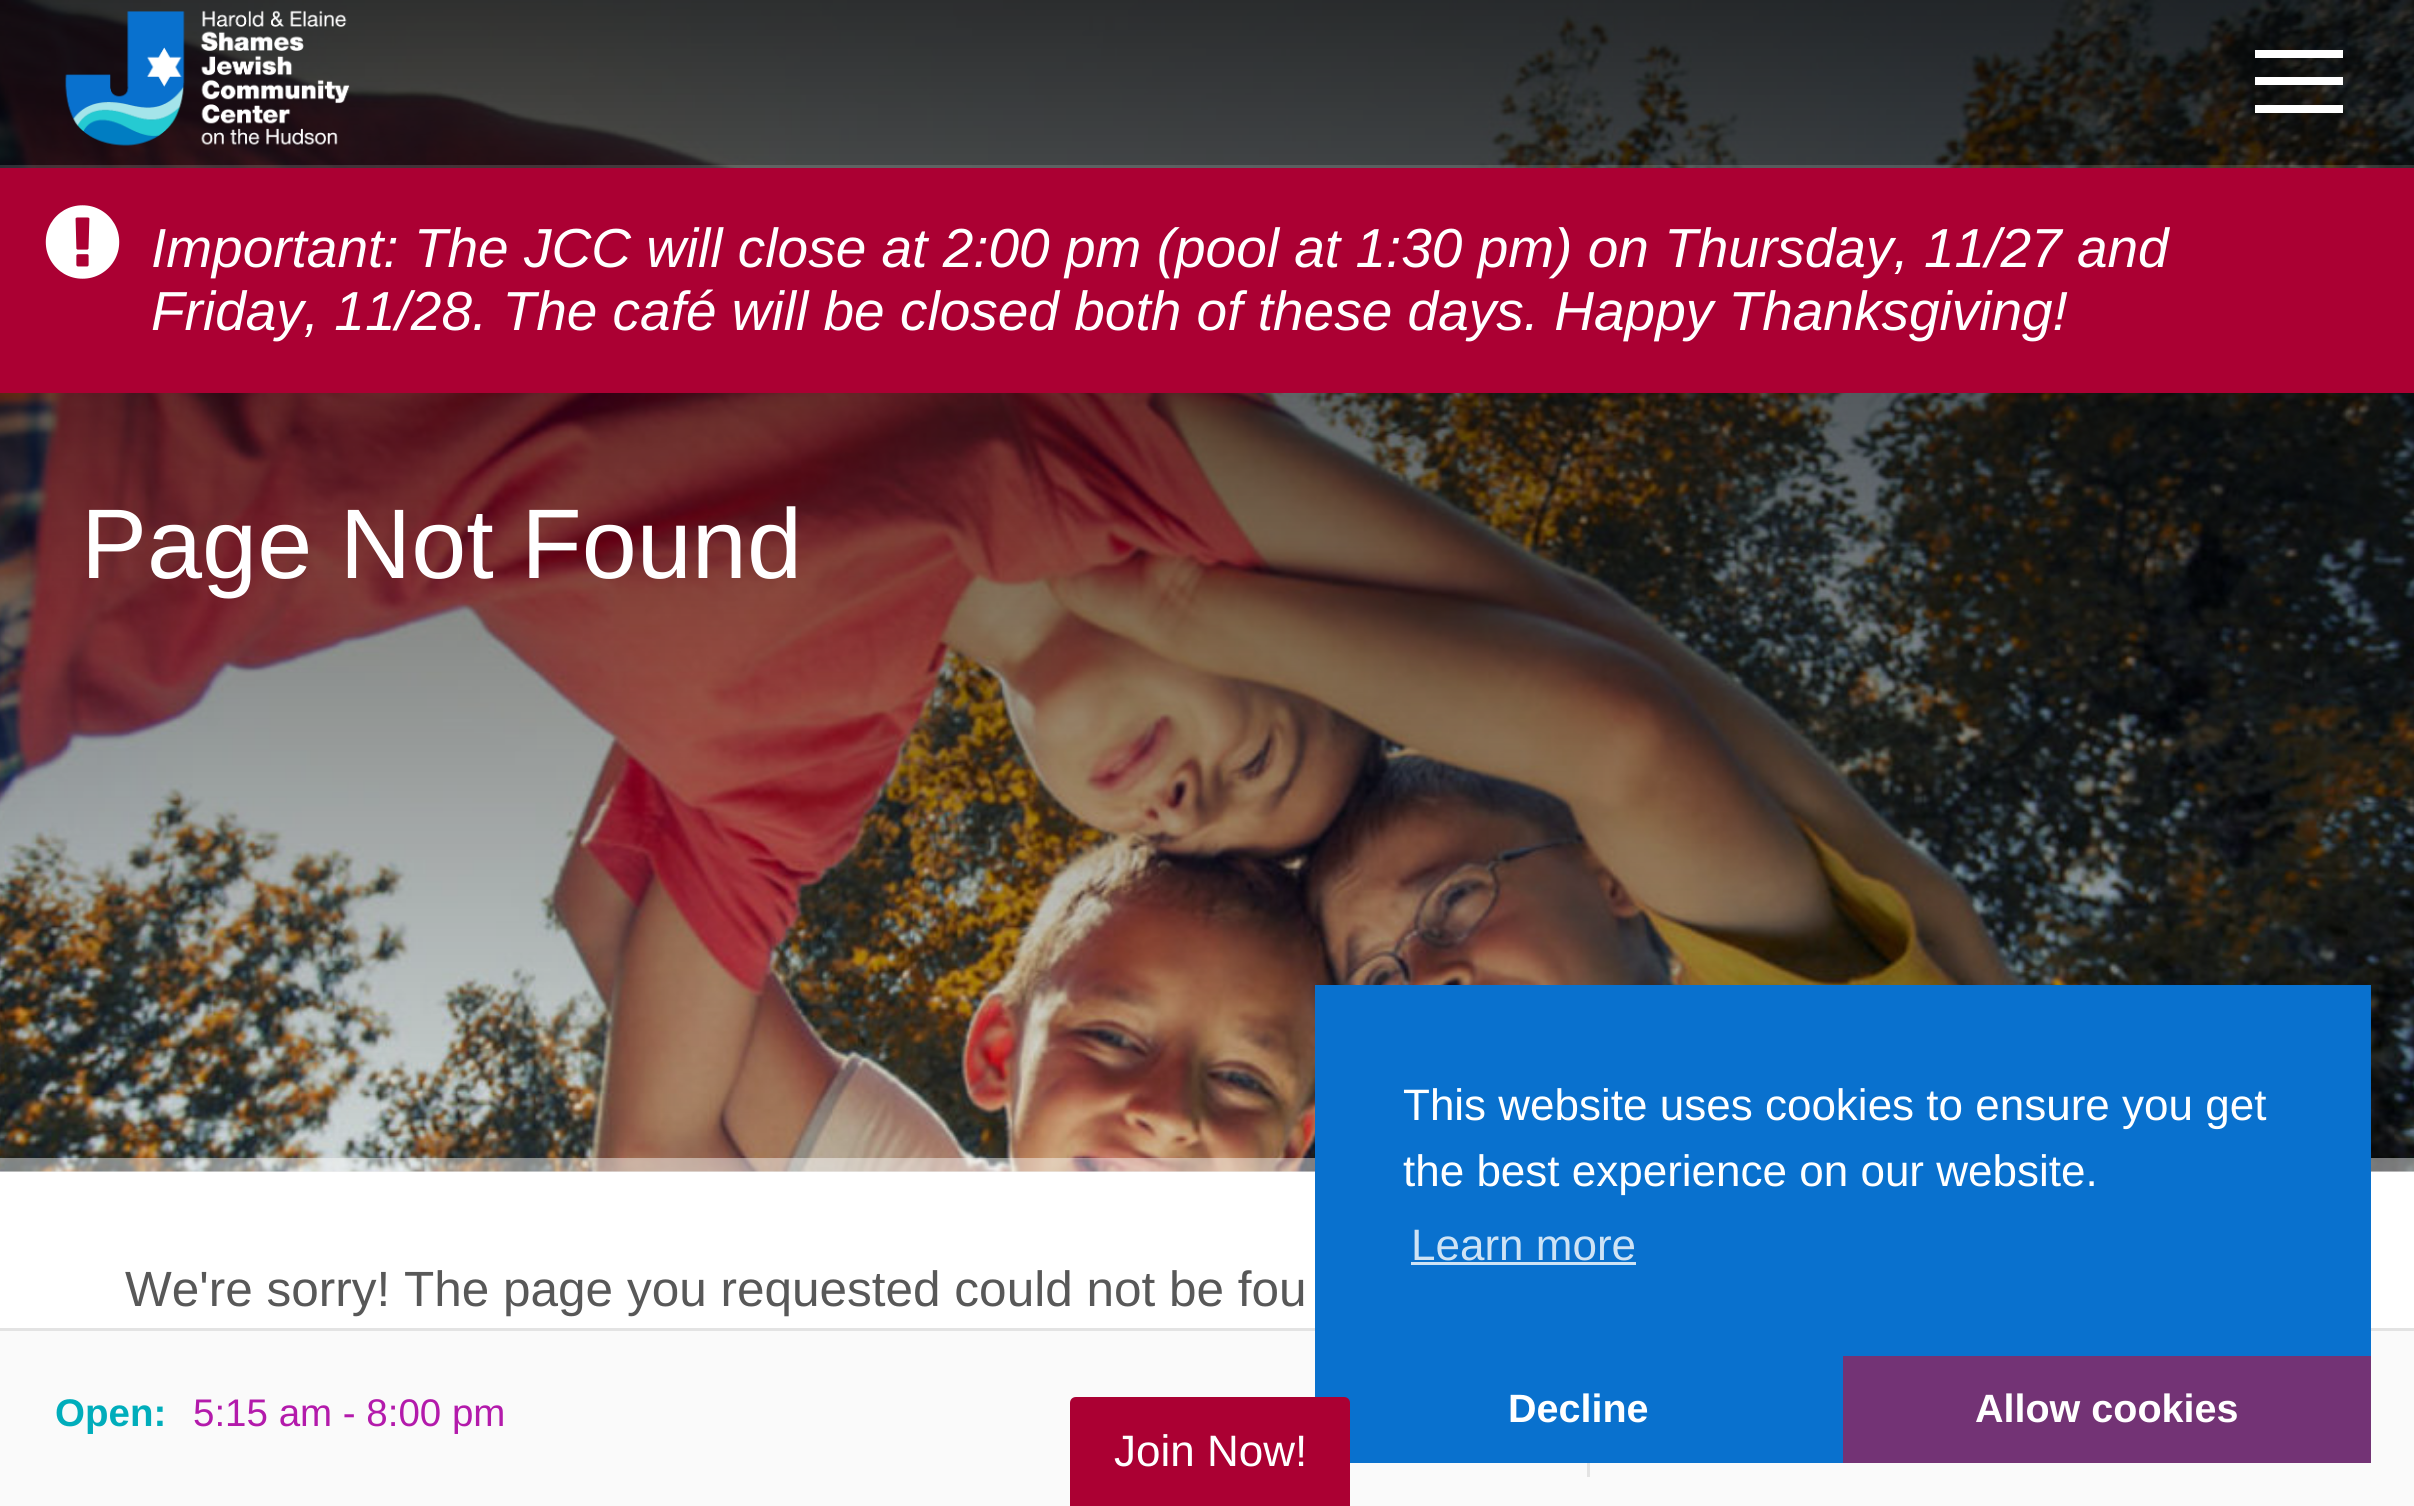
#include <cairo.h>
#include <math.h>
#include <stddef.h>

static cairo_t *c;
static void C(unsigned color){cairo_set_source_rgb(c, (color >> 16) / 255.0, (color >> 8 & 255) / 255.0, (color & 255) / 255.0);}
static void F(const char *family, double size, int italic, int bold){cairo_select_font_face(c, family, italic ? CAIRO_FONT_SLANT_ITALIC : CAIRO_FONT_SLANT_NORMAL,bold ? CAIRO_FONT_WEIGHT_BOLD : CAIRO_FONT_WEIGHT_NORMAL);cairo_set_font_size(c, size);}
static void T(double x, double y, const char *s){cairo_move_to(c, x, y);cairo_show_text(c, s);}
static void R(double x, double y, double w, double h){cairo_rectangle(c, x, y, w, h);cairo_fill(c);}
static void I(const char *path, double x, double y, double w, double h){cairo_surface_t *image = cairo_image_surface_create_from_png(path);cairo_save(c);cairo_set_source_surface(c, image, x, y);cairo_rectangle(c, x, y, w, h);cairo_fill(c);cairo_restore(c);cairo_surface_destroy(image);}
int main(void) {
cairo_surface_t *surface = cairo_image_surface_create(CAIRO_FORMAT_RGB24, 2414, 1506);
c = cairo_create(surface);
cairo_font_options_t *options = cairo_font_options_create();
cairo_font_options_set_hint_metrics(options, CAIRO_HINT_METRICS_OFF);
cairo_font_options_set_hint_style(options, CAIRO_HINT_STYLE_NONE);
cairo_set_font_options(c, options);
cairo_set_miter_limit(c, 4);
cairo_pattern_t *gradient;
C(0xffffff);
cairo_paint(c);
I("3.png",0,0,2414,1172);
gradient = cairo_pattern_create_linear(1207,0,1207,1172);
cairo_pattern_add_color_stop_rgba(gradient,0,0,0,0,.8);
cairo_pattern_add_color_stop_rgba(gradient,1,0,0,0,.1);
cairo_set_source(c,gradient);
cairo_pattern_destroy(gradient);
R(0,0,2414,1172);
I("1.png",65,10,285,136);
C(0xffffff);
R(2255,50,88,8);
R(2255,77,88,8);
R(2255,105,88,8);
cairo_set_source_rgba(c,1,1,1,0.15);
R(0,165,2414,3);
C(0xab0033);
R(0,168,2414,225);
I("2.png",45,205,75,74);
F("Liberation Sans",55,1,0);
C(0xffffff);
T(151,267,"Important: The JCC will close at 2:00 pm (pool at 1:30 pm) on Thursday, 11/27 and");
T(151,330,"Friday, 11/28. The café will be closed both of these days. Happy Thanksgiving!");
cairo_set_source_rgba(c,1,1,1,0.45);
R(0,1158,2414,14);
F("Liberation Sans",99,0,0);
C(0xffffff);
T(81,578,"Page Not Found");
F("Liberation Sans",49.5,0,0);
C(0x585858);
T(125,1306,"We're sorry! The page you requested could not be fou");
C(0xfafafa);
R(0,1331,2414,175);
C(0xe3e3e3);
R(0,1328,2414,3);
R(1587,1463,3,14);
F("Liberation Sans",38.5,0,1);
C(0x00adbb);
T(55,1426,"Open:");
F("Liberation Sans",38.5,0,0);
C(0xb31aab);
T(193,1426,"5:15 am - 8:00 pm");
C(0x0971ce);
R(1315,985,1056,478);
F("Liberation Sans",44,0,0);
C(0xffffff);
T(1403,1120,"This website uses cookies to ensure you get");
T(1403,1186,"the best experience on our website.");
C(0xcee3f5);
T(1411,1260,"Learn more");
R(1411,1262,225,3);
F("Liberation Sans",39.5,0,1);
C(0xffffff);
T(1508,1422,"Decline");
C(0x733375);
R(1843,1356,528,107);
C(0xffffff);
T(1975,1422,"Allow cookies");
C(0xab0033);
cairo_new_path(c);
cairo_move_to(c,1076,1397);
cairo_line_to(c,1344,1397);
cairo_curve_to(c,1347.5,1397,1350,1399.5,1350,1403);
cairo_line_to(c,1350,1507);
cairo_line_to(c,1070,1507);
cairo_line_to(c,1070,1403);
cairo_curve_to(c,1070,1399.5,1072.5,1397,1076,1397);
cairo_close_path(c);
cairo_fill(c);
F("Liberation Sans",44,0,0);
C(0xffffff);
T(1114,1466,"Join Now!");
cairo_surface_write_to_png(surface, "o.png");
cairo_font_options_destroy(options);
cairo_destroy(c);
cairo_surface_destroy(surface);
return 0;
}
